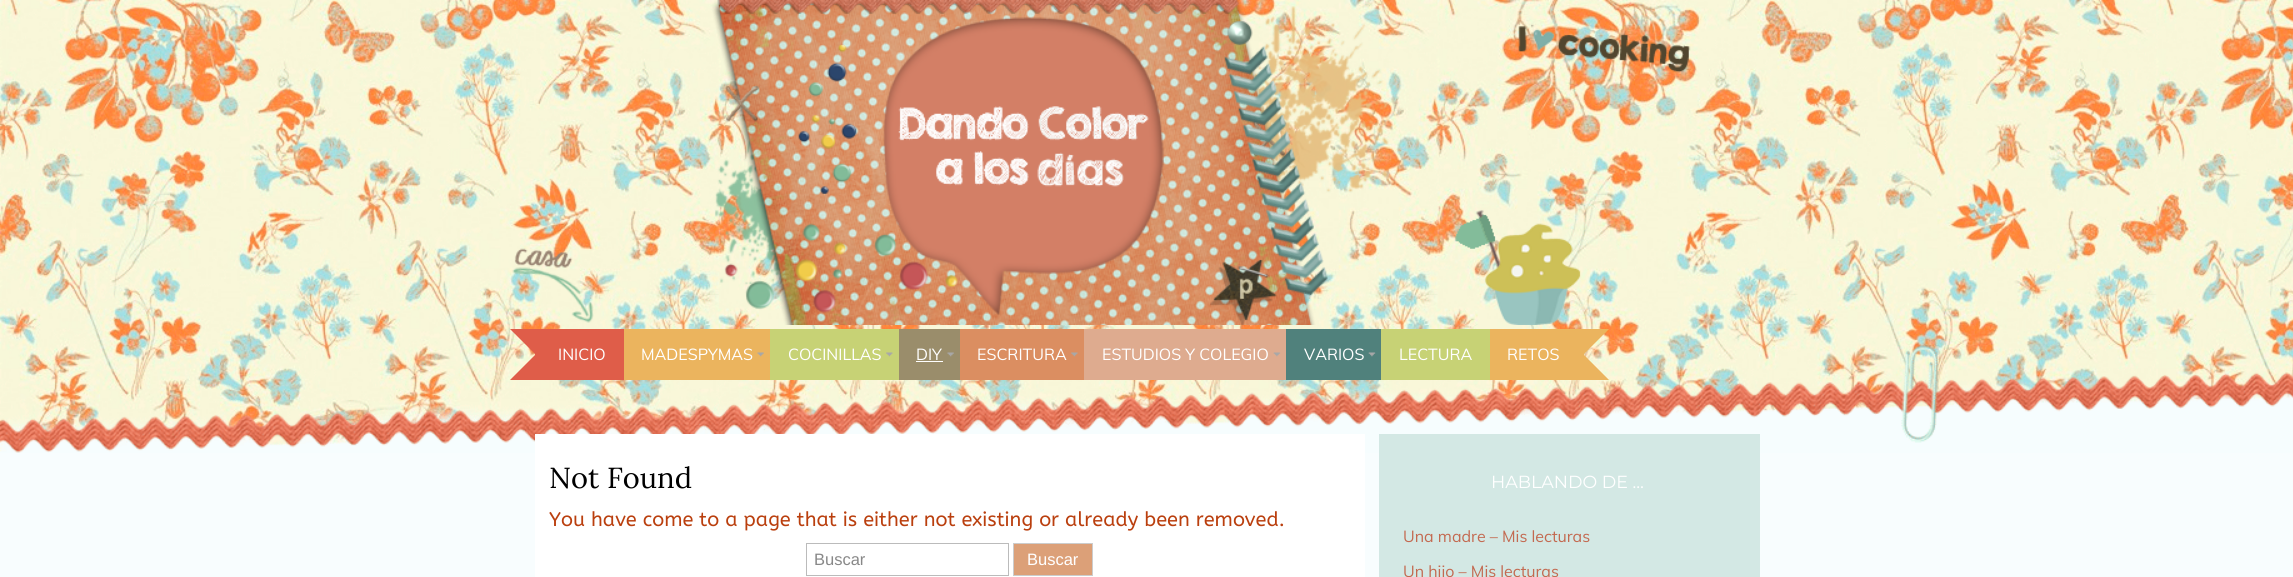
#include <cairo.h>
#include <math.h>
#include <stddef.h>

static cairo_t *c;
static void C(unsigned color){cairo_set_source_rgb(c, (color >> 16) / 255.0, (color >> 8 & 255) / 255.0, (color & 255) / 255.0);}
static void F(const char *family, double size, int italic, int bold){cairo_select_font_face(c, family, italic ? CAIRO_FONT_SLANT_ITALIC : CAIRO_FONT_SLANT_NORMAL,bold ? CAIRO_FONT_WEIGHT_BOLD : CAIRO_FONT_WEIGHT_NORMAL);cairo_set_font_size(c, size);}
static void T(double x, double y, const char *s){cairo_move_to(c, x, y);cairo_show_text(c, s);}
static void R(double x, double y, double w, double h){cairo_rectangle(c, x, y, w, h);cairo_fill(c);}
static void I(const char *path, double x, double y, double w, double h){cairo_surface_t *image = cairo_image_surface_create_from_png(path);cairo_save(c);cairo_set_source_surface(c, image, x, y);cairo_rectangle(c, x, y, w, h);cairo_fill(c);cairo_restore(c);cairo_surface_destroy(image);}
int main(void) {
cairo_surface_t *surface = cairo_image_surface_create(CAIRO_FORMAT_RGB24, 2293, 577);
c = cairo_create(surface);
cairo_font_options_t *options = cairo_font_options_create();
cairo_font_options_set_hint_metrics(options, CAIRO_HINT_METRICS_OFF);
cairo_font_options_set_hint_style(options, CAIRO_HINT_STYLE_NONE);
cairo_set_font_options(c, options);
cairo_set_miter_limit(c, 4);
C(0xf8fdfe);
cairo_paint(c);
I("1.png",0,0,2293,453);
I("2.png",512,0,1179,325);
C(0xdf5d49);
cairo_new_path(c);
cairo_move_to(c,510,329);
cairo_line_to(c,556,329);
cairo_line_to(c,535,354);
cairo_close_path(c);
cairo_fill(c);
R(535,347,6,16);
cairo_new_path(c);
cairo_move_to(c,556,380);
cairo_line_to(c,510,380);
cairo_line_to(c,535,355);
cairo_close_path(c);
cairo_fill(c);
R(541,329,83,51);
F("Muli",16,0,0);
C(0xffffff);
T(558,360,"INICIO");
C(0xebb45e);
R(624,329,146,51);
I("3.png",757,352,7,5);
C(0xffffff);
T(641,360,"MADESPYMAS");
C(0xc7d275);
R(770,329,129,51);
I("4.png",886,352,7,5);
C(0xffffff);
T(788,360,"COCINILLAS");
C(0x9a8d6b);
R(899,329,61,51);
I("5.png",947,352,7,5);
C(0xffffff);
T(916,360,"DIY");
R(916,361,27,1);
C(0xdb8e61);
R(960,329,124,51);
I("6.png",1071,352,7,5);
C(0xffffff);
T(977,360,"ESCRITURA");
C(0xdeab8f);
R(1084,329,202,51);
I("7.png",1273,352,8,5);
C(0xffffff);
T(1102,360,"ESTUDIOS Y COLEGIO");
C(0x50817c);
R(1286,329,95,51);
I("8.png",1368,352,8,5);
C(0xffffff);
T(1304,360,"VARIOS");
C(0xc7d275);
R(1381,329,109,51);
C(0xffffff);
T(1399,360,"LECTURA");
C(0xebb45e);
cairo_new_path(c);
cairo_move_to(c,1562,329);
cairo_line_to(c,1609,329);
cairo_line_to(c,1584,354);
cairo_close_path(c);
cairo_move_to(c,1609,380);
cairo_line_to(c,1562,380);
cairo_line_to(c,1584,355);
cairo_close_path(c);
cairo_fill(c);
R(1490,329,88,51);
C(0xffffff);
T(1507,360,"RETOS");
C(0xebb45e);
R(1578,347,6,15);
C(0xffffff);
R(535,434,830,143);
F("Lora",29,0,0);
C(0x000000);
T(549,488,"Not Found");
F("ABeeZee",20,0,0);
C(0xba3f0e);
T(549,526,"You have come to a page that is either not existing or already been removed.");
cairo_rectangle(c,806.5,543.5,202,32);
C(0xbbbbbb);
cairo_set_line_width(c,1);
cairo_stroke(c);
F("Liberation Sans",16.5,0,0);
C(0x888888);
T(814,565,"Buscar");
C(0xdca078);
cairo_rectangle(c,1013.5,543.5,79,32);
cairo_fill_preserve(c);
C(0xcccccc);
cairo_stroke(c);
C(0xffffff);
T(1027,565,"Buscar");
C(0xd3e8e4);
R(1379,434,381,143);
F("Montserrat Thin",17.5,0,0);
C(0xffffff);
T(1491,488,"HABLANDO DE …");
F("Muli",16,0,0);
C(0xc36950);
T(1403,542,"Una madre – Mis lecturas");
T(1403,577,"Un hijo – Mis lecturas");
cairo_surface_write_to_png(surface, "o.png");
cairo_font_options_destroy(options);
cairo_destroy(c);
cairo_surface_destroy(surface);
return 0;
}
